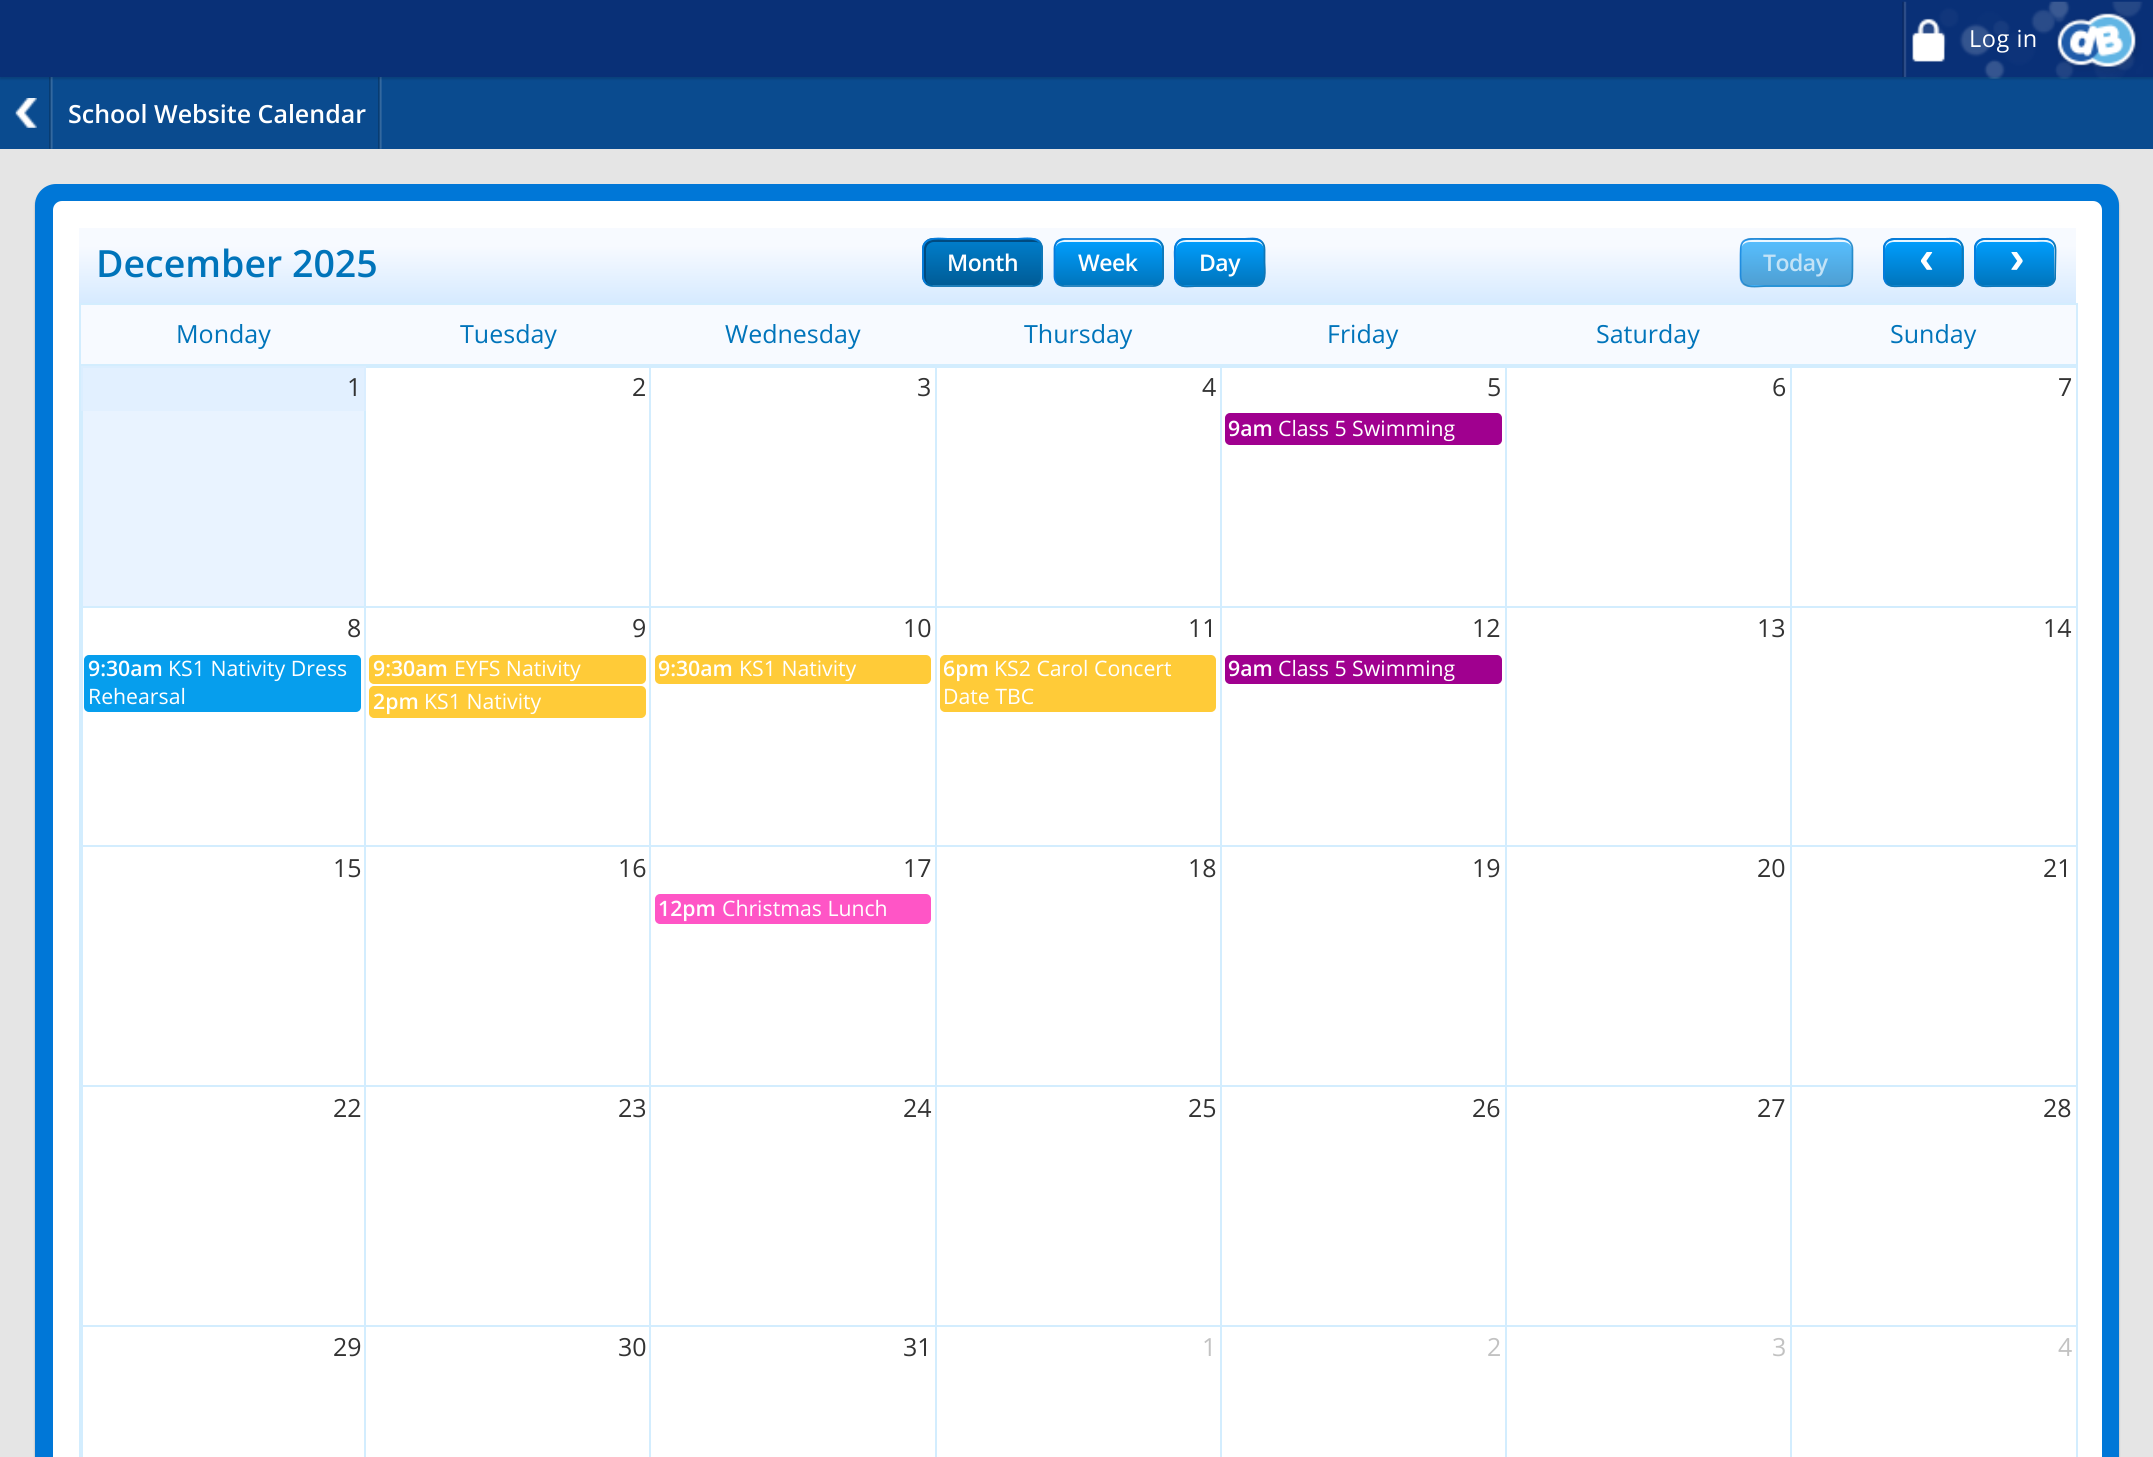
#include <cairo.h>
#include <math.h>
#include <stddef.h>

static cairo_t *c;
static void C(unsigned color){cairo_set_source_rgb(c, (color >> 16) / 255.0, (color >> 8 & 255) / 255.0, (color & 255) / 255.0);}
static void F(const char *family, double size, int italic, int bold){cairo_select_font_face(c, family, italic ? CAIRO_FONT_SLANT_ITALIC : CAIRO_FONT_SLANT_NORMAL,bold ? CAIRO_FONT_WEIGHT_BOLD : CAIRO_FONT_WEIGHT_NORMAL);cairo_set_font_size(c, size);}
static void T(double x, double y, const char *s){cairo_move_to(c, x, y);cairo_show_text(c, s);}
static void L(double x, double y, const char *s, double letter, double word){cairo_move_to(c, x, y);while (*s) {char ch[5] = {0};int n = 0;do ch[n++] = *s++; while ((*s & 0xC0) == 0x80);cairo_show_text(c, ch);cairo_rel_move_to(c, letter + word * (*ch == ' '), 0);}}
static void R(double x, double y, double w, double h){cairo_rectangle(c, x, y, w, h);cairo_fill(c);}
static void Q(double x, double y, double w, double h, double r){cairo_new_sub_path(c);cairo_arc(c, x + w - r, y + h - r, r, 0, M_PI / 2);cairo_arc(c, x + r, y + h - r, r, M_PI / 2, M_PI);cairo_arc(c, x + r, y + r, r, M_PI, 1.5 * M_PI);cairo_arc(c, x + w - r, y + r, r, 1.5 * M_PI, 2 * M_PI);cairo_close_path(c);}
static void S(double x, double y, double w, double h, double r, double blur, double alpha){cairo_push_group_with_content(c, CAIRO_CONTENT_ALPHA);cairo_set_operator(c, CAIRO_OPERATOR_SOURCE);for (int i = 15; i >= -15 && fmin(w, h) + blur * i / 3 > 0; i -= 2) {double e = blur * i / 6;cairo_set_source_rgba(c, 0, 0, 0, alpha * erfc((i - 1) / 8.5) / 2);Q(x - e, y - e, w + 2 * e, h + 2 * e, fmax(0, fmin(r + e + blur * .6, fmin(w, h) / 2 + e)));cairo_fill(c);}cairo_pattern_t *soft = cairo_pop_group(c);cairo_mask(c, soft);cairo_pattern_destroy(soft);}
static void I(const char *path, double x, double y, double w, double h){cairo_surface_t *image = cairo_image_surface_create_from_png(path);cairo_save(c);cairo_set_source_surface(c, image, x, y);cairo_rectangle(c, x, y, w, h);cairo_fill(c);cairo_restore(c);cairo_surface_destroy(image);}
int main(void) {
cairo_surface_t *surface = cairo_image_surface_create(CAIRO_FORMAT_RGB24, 2153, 1457);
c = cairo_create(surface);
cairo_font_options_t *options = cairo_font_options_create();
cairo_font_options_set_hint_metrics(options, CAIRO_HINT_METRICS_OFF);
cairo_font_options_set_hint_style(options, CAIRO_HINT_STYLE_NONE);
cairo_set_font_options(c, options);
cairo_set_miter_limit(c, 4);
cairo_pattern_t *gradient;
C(0xe5e5e5);
cairo_paint(c);
C(0x0a4b8f);
R(0,77,2153,72);
I("4.png",378,77,4,72);
I("4.png",49,77,4,72);
C(0x000000);
S(0,2,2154,77,0,1,.15);
C(0x093077);
R(0,0,2153,77);
I("1.png",1912,1,231,78);
I("2.png",1902,1,5,76);
I("3.png",1912,18,33,44);
F("Open Sans",23.5,0,0);
C(0xffffff);
L(1969,47,"Log in",.5,0);
C(0x000000);
S(35,186,2084,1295,21,1,.25);
C(0x0077d7);
cairo_new_path(c);
cairo_move_to(c,56,184);
cairo_line_to(c,2098,184);
cairo_curve_to(c,2109.5,184,2119,193.5,2119,205);
cairo_line_to(c,2119,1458);
cairo_line_to(c,35,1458);
cairo_line_to(c,35,205);
cairo_curve_to(c,35,193.5,44.5,184,56,184);
cairo_close_path(c);
cairo_fill(c);
C(0xffffff);
cairo_new_path(c);
cairo_move_to(c,62,201);
cairo_line_to(c,2093,201);
cairo_curve_to(c,2098,201,2102,205,2102,210);
cairo_line_to(c,2102,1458);
cairo_line_to(c,53,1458);
cairo_line_to(c,53,210);
cairo_curve_to(c,53,205,57,201,62,201);
cairo_close_path(c);
cairo_fill(c);
I("5.png",15,98,22,30);
F("Open Sans SemiBold",25,0,0);
T(68,123,"School Website Calendar");
gradient = cairo_pattern_create_linear(1077,227,1077,303);
cairo_pattern_add_color_stop_rgba(gradient,.25,0.969,0.98,1,1);
cairo_pattern_add_color_stop_rgba(gradient,1,0.839,0.918,1,1);
cairo_set_source(c,gradient);
cairo_pattern_destroy(gradient);
R(79,228,1997,75);
F("Open Sans SemiBold",37.5,0,0);
C(0x0074ba);
T(96,277,"December 2025");
cairo_save(c);
Q(922,238,121,49,11);
cairo_clip(c);
gradient = cairo_pattern_create_linear(983,194,983,240);
cairo_pattern_add_color_stop_rgba(gradient,0,0,0.494,0.8,1);
cairo_pattern_add_color_stop_rgba(gradient,1,0,0.361,0.588,1);
cairo_set_source(c,gradient);
cairo_pattern_destroy(gradient);
R(922,238,121,2);
gradient = cairo_pattern_create_linear(983,240,983,285);
cairo_pattern_add_color_stop_rgba(gradient,0,0,0.494,0.8,1);
cairo_pattern_add_color_stop_rgba(gradient,1,0,0.361,0.588,1);
cairo_set_source(c,gradient);
cairo_pattern_destroy(gradient);
R(922,240,121,45);
cairo_restore(c);
C(0x004b81);
cairo_new_path(c);
cairo_move_to(c,934,242);
cairo_line_to(c,1034,242);
cairo_curve_to(c,1036,242,1037,242,1039,243);
cairo_curve_to(c,1037,241,1035,240,1032,240);
cairo_line_to(c,933,240);
cairo_curve_to(c,928,240,924,244,924,249);
cairo_line_to(c,924,276);
cairo_curve_to(c,924,279,925,282,928,283);
cairo_curve_to(c,927,282,926,280,926,278);
cairo_line_to(c,926,250);
cairo_curve_to(c,926,245,930,242,934,242);
cairo_close_path(c);
cairo_fill(c);
cairo_new_path(c);
cairo_move_to(c,1039.5,241.5);
cairo_curve_to(c,1041,243.5,1042,246,1042,248.5);
cairo_line_to(c,1042,276.5);
cairo_curve_to(c,1042,279,1041,281.5,1039.5,283.5);
C(0x0f77b7);
cairo_set_line_width(c,1.8);
cairo_stroke(c);
cairo_new_path(c);
cairo_move_to(c,1039.5,283.5);
cairo_curve_to(c,1037.5,285,1035,286,1032.5,286);
cairo_line_to(c,933,286);
cairo_curve_to(c,930,286,927.5,285,926,283.5);
C(0x006cae);
cairo_stroke(c);
cairo_new_path(c);
cairo_move_to(c,926,283.5);
cairo_curve_to(c,922.5,280,923,276,923,272);
cairo_line_to(c,923,247.5);
cairo_curve_to(c,924.5,235.5,942.5,239,949.5,239);
cairo_line_to(c,1016,239);
cairo_curve_to(c,1020.5,239,1034,236.5,1039.5,241.5);
C(0x057cdc);
cairo_stroke(c);
F("Open Sans SemiBold",23,0,0);
C(0xffffff);
L(947,271,"Month",-.5,0);
cairo_save(c);
Q(1054,238,110,49,11);
cairo_clip(c);
gradient = cairo_pattern_create_linear(1109,240,1109,285);
cairo_pattern_add_color_stop_rgba(gradient,0,0,0.62,1,1);
cairo_pattern_add_color_stop_rgba(gradient,1,0,0.459,0.737,1);
cairo_set_source(c,gradient);
cairo_pattern_destroy(gradient);
R(1054,240,110,45);
cairo_restore(c);
C(0xe6f5ff);
cairo_new_path(c);
cairo_move_to(c,1064,242);
cairo_line_to(c,1153,242);
cairo_curve_to(c,1158,242,1162,245,1162,250);
cairo_curve_to(c,1162,237,1147,240,1138,240);
cairo_line_to(c,1079,240);
cairo_curve_to(c,1070,240,1055,237,1055,250);
cairo_curve_to(c,1055,245,1059,242,1064,242);
cairo_close_path(c);
cairo_fill(c);
cairo_new_path(c);
cairo_move_to(c,1160,241.5);
cairo_curve_to(c,1162,243.5,1163,246,1163,248.5);
cairo_line_to(c,1163,276.5);
cairo_curve_to(c,1163,279,1162,281.5,1160,283.5);
cairo_curve_to(c,1158.5,285,1156,286,1153,286);
cairo_line_to(c,1064,286);
cairo_curve_to(c,1061.5,286,1059,285,1057,283.5);
C(0x0f77b7);
cairo_stroke(c);
cairo_new_path(c);
cairo_move_to(c,1057,283.5);
cairo_curve_to(c,1055.5,281.5,1054.5,279,1054.5,276.5);
cairo_line_to(c,1054.5,248.5);
cairo_curve_to(c,1054.5,246,1055.5,243.5,1057,241.5);
cairo_curve_to(c,1059,240,1061.5,239,1064,239);
cairo_line_to(c,1153,239);
cairo_curve_to(c,1156,239,1158.5,240,1160,241.5);
C(0x057cdc);
cairo_stroke(c);
C(0xffffff);
L(1078,271,"Week",-.5,0);
cairo_save(c);
Q(1174,238,91,49,11);
cairo_clip(c);
gradient = cairo_pattern_create_linear(1220,194,1220,240);
cairo_pattern_add_color_stop_rgba(gradient,0,0,0.62,1,1);
cairo_pattern_add_color_stop_rgba(gradient,1,0,0.459,0.737,1);
cairo_set_source(c,gradient);
cairo_pattern_destroy(gradient);
R(1174,238,91,2);
gradient = cairo_pattern_create_linear(1220,240,1220,285);
cairo_pattern_add_color_stop_rgba(gradient,0,0,0.62,1,1);
cairo_pattern_add_color_stop_rgba(gradient,1,0,0.459,0.737,1);
cairo_set_source(c,gradient);
cairo_pattern_destroy(gradient);
R(1174,240,91,45);
gradient = cairo_pattern_create_linear(1220,285,1220,331);
cairo_pattern_add_color_stop_rgba(gradient,0,0,0.62,1,1);
cairo_pattern_add_color_stop_rgba(gradient,1,0,0.459,0.737,1);
cairo_set_source(c,gradient);
cairo_pattern_destroy(gradient);
R(1174,285,91,2);
cairo_restore(c);
C(0xe6f5ff);
cairo_new_path(c);
cairo_move_to(c,1185,242);
cairo_line_to(c,1255,242);
cairo_curve_to(c,1260,242,1264,245,1264,250);
cairo_curve_to(c,1264,238,1252,240,1243,240);
cairo_line_to(c,1197,240);
cairo_curve_to(c,1188,240,1176,238,1176,250);
cairo_curve_to(c,1176,245,1180,242,1185,242);
cairo_close_path(c);
cairo_fill(c);
cairo_new_path(c);
cairo_move_to(c,1261.5,241.5);
cairo_curve_to(c,1265,245,1264.5,249,1264.5,253);
cairo_line_to(c,1264.5,262.5);
cairo_curve_to(c,1264.5,270,1267.5,285,1255.5,286);
cairo_line_to(c,1196.5,286);
cairo_curve_to(c,1191,286,1182.5,288,1178,283.5);
C(0x0f77b7);
cairo_stroke(c);
cairo_new_path(c);
cairo_move_to(c,1178,283.5);
cairo_curve_to(c,1174.5,280,1175,276,1175,272);
cairo_line_to(c,1175,262.5);
cairo_curve_to(c,1175,255,1172,240,1184,239);
cairo_line_to(c,1243,239);
cairo_curve_to(c,1248.5,239,1257,237,1261.5,241.5);
C(0x057cdc);
cairo_stroke(c);
C(0xffffff);
L(1199,271,"Day",-.5,0);
cairo_save(c);
Q(1740,238,113,49,11);
cairo_clip(c);
gradient = cairo_pattern_create_linear(1796,194,1796,240);
cairo_pattern_add_color_stop_rgba(gradient,0,0.337,0.745,1,1);
cairo_pattern_add_color_stop_rgba(gradient,1,0.337,0.643,0.827,1);
cairo_set_source(c,gradient);
cairo_pattern_destroy(gradient);
R(1740,238,113,2);
gradient = cairo_pattern_create_linear(1796,240,1796,285);
cairo_pattern_add_color_stop_rgba(gradient,0,0,0.62,1,.65);
cairo_pattern_add_color_stop_rgba(gradient,1,0,0.459,0.737,.65);
cairo_set_source(c,gradient);
cairo_pattern_destroy(gradient);
R(1740,240,113,45);
gradient = cairo_pattern_create_linear(1796,285,1796,331);
cairo_pattern_add_color_stop_rgba(gradient,0,0.306,0.729,1,1);
cairo_pattern_add_color_stop_rgba(gradient,1,0.306,0.627,0.827,1);
cairo_set_source(c,gradient);
cairo_pattern_destroy(gradient);
R(1740,285,113,2);
cairo_restore(c);
C(0xecf7ff);
cairo_new_path(c);
cairo_move_to(c,1750,242);
cairo_line_to(c,1843,242);
cairo_curve_to(c,1848,242,1852,245,1852,250);
cairo_curve_to(c,1852,236,1836,240,1828,240);
cairo_line_to(c,1766,240);
cairo_curve_to(c,1757,240,1741,236,1741,250);
cairo_curve_to(c,1741,245,1745,242,1750,242);
cairo_close_path(c);
cairo_fill(c);
cairo_new_path(c);
cairo_move_to(c,1849.5,241.5);
cairo_curve_to(c,1853,245,1852.5,249,1852.5,253);
cairo_line_to(c,1852.5,262.5);
cairo_curve_to(c,1852.5,287.5,1853,286,1827.5,286);
cairo_line_to(c,1765.5,286);
cairo_curve_to(c,1760.5,286,1748.5,288.5,1743,283.5);
cairo_set_source_rgba(c,0.059,0.467,0.718,0.65);
cairo_stroke(c);
cairo_new_path(c);
cairo_move_to(c,1743,283.5);
cairo_curve_to(c,1740,280,1740.5,276,1740.5,272);
cairo_line_to(c,1740.5,262.5);
cairo_curve_to(c,1740.5,237.5,1739.5,239,1765.5,239);
cairo_line_to(c,1827.5,239);
cairo_curve_to(c,1832.5,239,1844.5,236.5,1849.5,241.5);
cairo_set_source_rgba(c,0.02,0.486,0.863,0.65);
cairo_stroke(c);
C(0xc3e3f7);
L(1763,271,"Today",-.5,0);
cairo_save(c);
Q(1883,238,81,49,11);
cairo_clip(c);
gradient = cairo_pattern_create_linear(1923,194,1923,240);
cairo_pattern_add_color_stop_rgba(gradient,0,0,0.62,1,1);
cairo_pattern_add_color_stop_rgba(gradient,1,0,0.459,0.737,1);
cairo_set_source(c,gradient);
cairo_pattern_destroy(gradient);
R(1883,238,81,2);
gradient = cairo_pattern_create_linear(1923,240,1923,285);
cairo_pattern_add_color_stop_rgba(gradient,0,0,0.62,1,1);
cairo_pattern_add_color_stop_rgba(gradient,1,0,0.459,0.737,1);
cairo_set_source(c,gradient);
cairo_pattern_destroy(gradient);
R(1883,240,81,45);
gradient = cairo_pattern_create_linear(1923,285,1923,331);
cairo_pattern_add_color_stop_rgba(gradient,0,0,0.62,1,1);
cairo_pattern_add_color_stop_rgba(gradient,1,0,0.459,0.737,1);
cairo_set_source(c,gradient);
cairo_pattern_destroy(gradient);
R(1883,285,81,2);
cairo_restore(c);
C(0xe6f5ff);
cairo_new_path(c);
cairo_move_to(c,1894,242);
cairo_line_to(c,1953,242);
cairo_curve_to(c,1958,242,1962,245,1962,250);
cairo_curve_to(c,1962,238,1952,240,1943,240);
cairo_line_to(c,1904,240);
cairo_curve_to(c,1895,240,1885,238,1885,250);
cairo_curve_to(c,1885,245,1889,242,1894,242);
cairo_close_path(c);
cairo_fill(c);
cairo_new_path(c);
cairo_move_to(c,1960,241.5);
cairo_curve_to(c,1963,245,1962.5,249,1962.5,253);
cairo_line_to(c,1962.5,278.5);
cairo_curve_to(c,1960.5,287.5,1950,286,1943,286);
cairo_line_to(c,1903.5,286);
cairo_curve_to(c,1898,286,1891,287.5,1886.5,283.5);
C(0x0f77b7);
cairo_stroke(c);
cairo_new_path(c);
cairo_move_to(c,1886.5,283.5);
cairo_curve_to(c,1883.5,280,1884,276,1884,272);
cairo_line_to(c,1884,246.5);
cairo_curve_to(c,1886,237.5,1896.5,239,1903.5,239);
cairo_line_to(c,1943,239);
cairo_curve_to(c,1948.5,239,1955.5,237.5,1960,241.5);
C(0x057cdc);
cairo_stroke(c);
cairo_save(c);
cairo_rectangle(c,1913,252,23,23);
cairo_clip(c);
F("Liberation Mono",46,0,1);
C(0xffffff);
L(1913,273,"‹",-.5,0);
cairo_restore(c);
cairo_save(c);
Q(1974,238,82,49,11);
cairo_clip(c);
gradient = cairo_pattern_create_linear(2015,194,2015,240);
cairo_pattern_add_color_stop_rgba(gradient,0,0,0.62,1,1);
cairo_pattern_add_color_stop_rgba(gradient,1,0,0.459,0.737,1);
cairo_set_source(c,gradient);
cairo_pattern_destroy(gradient);
R(1974,238,82,2);
gradient = cairo_pattern_create_linear(2015,240,2015,285);
cairo_pattern_add_color_stop_rgba(gradient,0,0,0.62,1,1);
cairo_pattern_add_color_stop_rgba(gradient,1,0,0.459,0.737,1);
cairo_set_source(c,gradient);
cairo_pattern_destroy(gradient);
R(1974,240,82,45);
gradient = cairo_pattern_create_linear(2015,285,2015,331);
cairo_pattern_add_color_stop_rgba(gradient,0,0,0.62,1,1);
cairo_pattern_add_color_stop_rgba(gradient,1,0,0.459,0.737,1);
cairo_set_source(c,gradient);
cairo_pattern_destroy(gradient);
R(1974,285,82,2);
cairo_restore(c);
C(0xe6f5ff);
cairo_new_path(c);
cairo_move_to(c,1984,242);
cairo_line_to(c,2036,242);
cairo_curve_to(c,2041,242,2052,240,2054,248);
cairo_line_to(c,2054,281);
cairo_curve_to(c,2055,279,2055,278,2055,276);
cairo_line_to(c,2055,249);
cairo_curve_to(c,2055,244,2051,240,2046,240);
cairo_line_to(c,1985,240);
cairo_curve_to(c,1980,240,1976,244,1976,249);
cairo_line_to(c,1976,250);
cairo_curve_to(c,1976,245,1980,242,1984,242);
cairo_close_path(c);
cairo_fill(c);
cairo_new_path(c);
cairo_move_to(c,2052.5,241.5);
cairo_curve_to(c,2056,245,2055.5,249,2055.5,253);
cairo_line_to(c,2055,278.5);
cairo_curve_to(c,2053.5,288,2042.5,286,2035.5,286);
cairo_line_to(c,1994.5,286);
cairo_curve_to(c,1989.5,286,1982,287.5,1977.5,283.5);
C(0x0f77b7);
cairo_stroke(c);
cairo_new_path(c);
cairo_move_to(c,1977.5,283.5);
cairo_curve_to(c,1974.5,280,1975,276,1975,272);
cairo_line_to(c,1975,246.5);
cairo_curve_to(c,1977,237,1987.5,239,1994.5,239);
cairo_line_to(c,2035.5,239);
cairo_curve_to(c,2041,239,2048,237.5,2052.5,241.5);
C(0x057cdc);
cairo_stroke(c);
cairo_save(c);
cairo_rectangle(c,2004,252,23,23);
cairo_clip(c);
F("Liberation Mono",46,0,1);
C(0xffffff);
L(2003,273,"›",-.5,0);
cairo_restore(c);
C(0xf7faff);
R(81,305,1995,59);
C(0xd3edfe);
R(79,303,1998,2);
R(79,364,1998,2);
R(2076,364,2,1093);
R(2076,303,2,63);
R(79,364,2,1093);
R(79,303,2,63);
F("Open Sans",25,0,0);
C(0x0074ba);
T(176,343,"Monday");
T(460,343,"Tuesday");
T(725,343,"Wednesday");
T(1024,343,"Thursday");
T(1327,343,"Friday");
T(1596,343,"Saturday");
T(1890,343,"Sunday");
C(0xe9f3ff);
R(83,411,281,195);
C(0xe2f0ff);
R(83,368,281,43);
C(0xd3edfe);
R(1790,366,287,2);
R(1790,606,287,2);
R(1790,366,2,241);
R(1505,366,287,2);
R(1505,606,287,2);
R(1505,366,2,241);
R(1220,366,287,2);
R(1220,606,287,2);
R(1220,366,2,241);
R(935,366,287,2);
R(935,606,287,2);
R(935,366,2,241);
R(649,366,287,2);
R(649,606,287,2);
R(649,366,2,241);
R(364,366,287,2);
C(0xdbeeff);
R(364,366,2,45);
R(81,366,285,2);
C(0xd3edfe);
R(364,606,287,2);
R(364,411,2,196);
R(81,606,285,2);
R(81,411,2,196);
C(0xdbeeff);
R(81,366,2,45);
C(0x333333);
T(347,396,"1");
T(632,396,"2");
T(917,396,"3");
T(1202,396,"4");
T(1487,396,"5");
T(1772,396,"6");
T(2058,396,"7");
C(0xa0008f);
Q(1226,414,275,30,4);
cairo_fill_preserve(c);
cairo_set_line_width(c,2);
cairo_stroke(c);
F("Open Sans SemiBold",21.25,0,0);
C(0xffffff);
T(1228,436,"9am");
F("Open Sans",21.25,0,0);
T(1278,436,"Class 5 Swimming");
C(0xd3edfe);
R(1790,845,287,2);
R(1790,606,2,241);
R(1505,845,287,2);
R(1505,606,2,241);
R(1220,845,287,2);
R(1220,606,2,241);
R(935,845,287,2);
R(935,606,2,241);
R(649,845,287,2);
R(649,606,2,241);
R(364,845,287,2);
R(364,606,2,241);
R(81,845,285,2);
R(81,606,2,241);
F("Open Sans",25,0,0);
C(0x333333);
T(347,637,"8");
T(632,637,"9");
T(903,637,"10");
T(1188,637,"11");
T(1472,637,"12");
T(1757,637,"13");
T(2043,637,"14");
C(0x069eed);
Q(85,656,275,55,4);
cairo_fill_preserve(c);
cairo_stroke(c);
F("Open Sans SemiBold",21.25,0,0);
C(0xffffff);
T(88,676,"9:30am");
F("Open Sans",21.25,0,0);
T(168,676,"KS1 Nativity Dress");
T(88,704,"Rehearsal");
C(0xffcb38);
Q(370,656,275,27,4);
cairo_fill_preserve(c);
cairo_stroke(c);
F("Open Sans SemiBold",21.25,0,0);
C(0xffffff);
T(373,676,"9:30am");
F("Open Sans",21.25,0,0);
T(454,676,"EYFS Nativity");
C(0xffcb38);
Q(656,656,274,27,4);
cairo_fill_preserve(c);
cairo_stroke(c);
F("Open Sans SemiBold",21.25,0,0);
C(0xffffff);
T(658,676,"9:30am");
F("Open Sans",21.25,0,0);
T(739,676,"KS1 Nativity");
C(0xffcb38);
Q(941,656,274,55,4);
cairo_fill_preserve(c);
cairo_stroke(c);
F("Open Sans SemiBold",21.25,0,0);
C(0xffffff);
T(943,676,"6pm");
F("Open Sans",21.25,0,0);
T(994,676,"KS2 Carol Concert");
T(943,704,"Date TBC");
C(0xa0008f);
Q(1226,656,275,27,4);
cairo_fill_preserve(c);
cairo_stroke(c);
F("Open Sans SemiBold",21.25,0,0);
C(0xffffff);
T(1228,676,"9am");
F("Open Sans",21.25,0,0);
T(1278,676,"Class 5 Swimming");
C(0xffcb38);
Q(370,687,275,30,4);
cairo_fill_preserve(c);
cairo_stroke(c);
F("Open Sans SemiBold",21.25,0,0);
C(0xffffff);
T(373,709,"2pm");
F("Open Sans",21.25,0,0);
T(424,709,"KS1 Nativity");
C(0xd3edfe);
R(1790,1085,287,2);
R(1790,845,2,242);
R(1505,1085,287,2);
R(1505,845,2,242);
R(1220,1085,287,2);
R(1220,845,2,242);
R(935,1085,287,2);
R(935,845,2,242);
R(649,1085,287,2);
R(649,845,2,242);
R(364,1085,287,2);
R(364,845,2,242);
R(81,1085,285,2);
R(81,845,2,242);
F("Open Sans",25,0,0);
C(0x333333);
T(333,877,"15");
T(618,877,"16");
T(903,877,"17");
T(1188,877,"18");
T(1472,877,"19");
T(1757,877,"20");
T(2043,877,"21");
C(0xff55c6);
Q(656,895,274,28,4);
cairo_fill_preserve(c);
cairo_stroke(c);
F("Open Sans SemiBold",21.25,0,0);
C(0xffffff);
T(658,916,"12pm");
F("Open Sans",21.25,0,0);
T(722,916,"Christmas Lunch");
C(0xd3edfe);
R(1790,1325,287,2);
R(1790,1085,2,242);
R(1505,1325,287,2);
R(1505,1085,2,242);
R(1220,1325,287,2);
R(1220,1085,2,242);
R(935,1325,287,2);
R(935,1085,2,242);
R(649,1325,287,2);
R(649,1085,2,242);
R(364,1325,287,2);
R(364,1085,2,242);
R(81,1325,285,2);
R(81,1085,2,372);
F("Open Sans",25,0,0);
C(0x333333);
T(333,1117,"22");
T(618,1117,"23");
T(903,1117,"24");
T(1188,1117,"25");
T(1472,1117,"26");
T(1757,1117,"27");
T(2043,1117,"28");
C(0xd3edfe);
R(364,1325,2,132);
R(649,1325,2,132);
R(935,1325,2,132);
R(1220,1325,2,132);
R(1505,1325,2,132);
R(1790,1325,2,132);
C(0x333333);
T(333,1356,"29");
T(618,1356,"30");
T(903,1356,"31");
C(0xc2c2c2);
T(1202,1356,"1");
T(1487,1356,"2");
T(1772,1356,"3");
T(2058,1356,"4");
cairo_surface_write_to_png(surface, "o.png");
cairo_font_options_destroy(options);
cairo_destroy(c);
cairo_surface_destroy(surface);
return 0;
}
